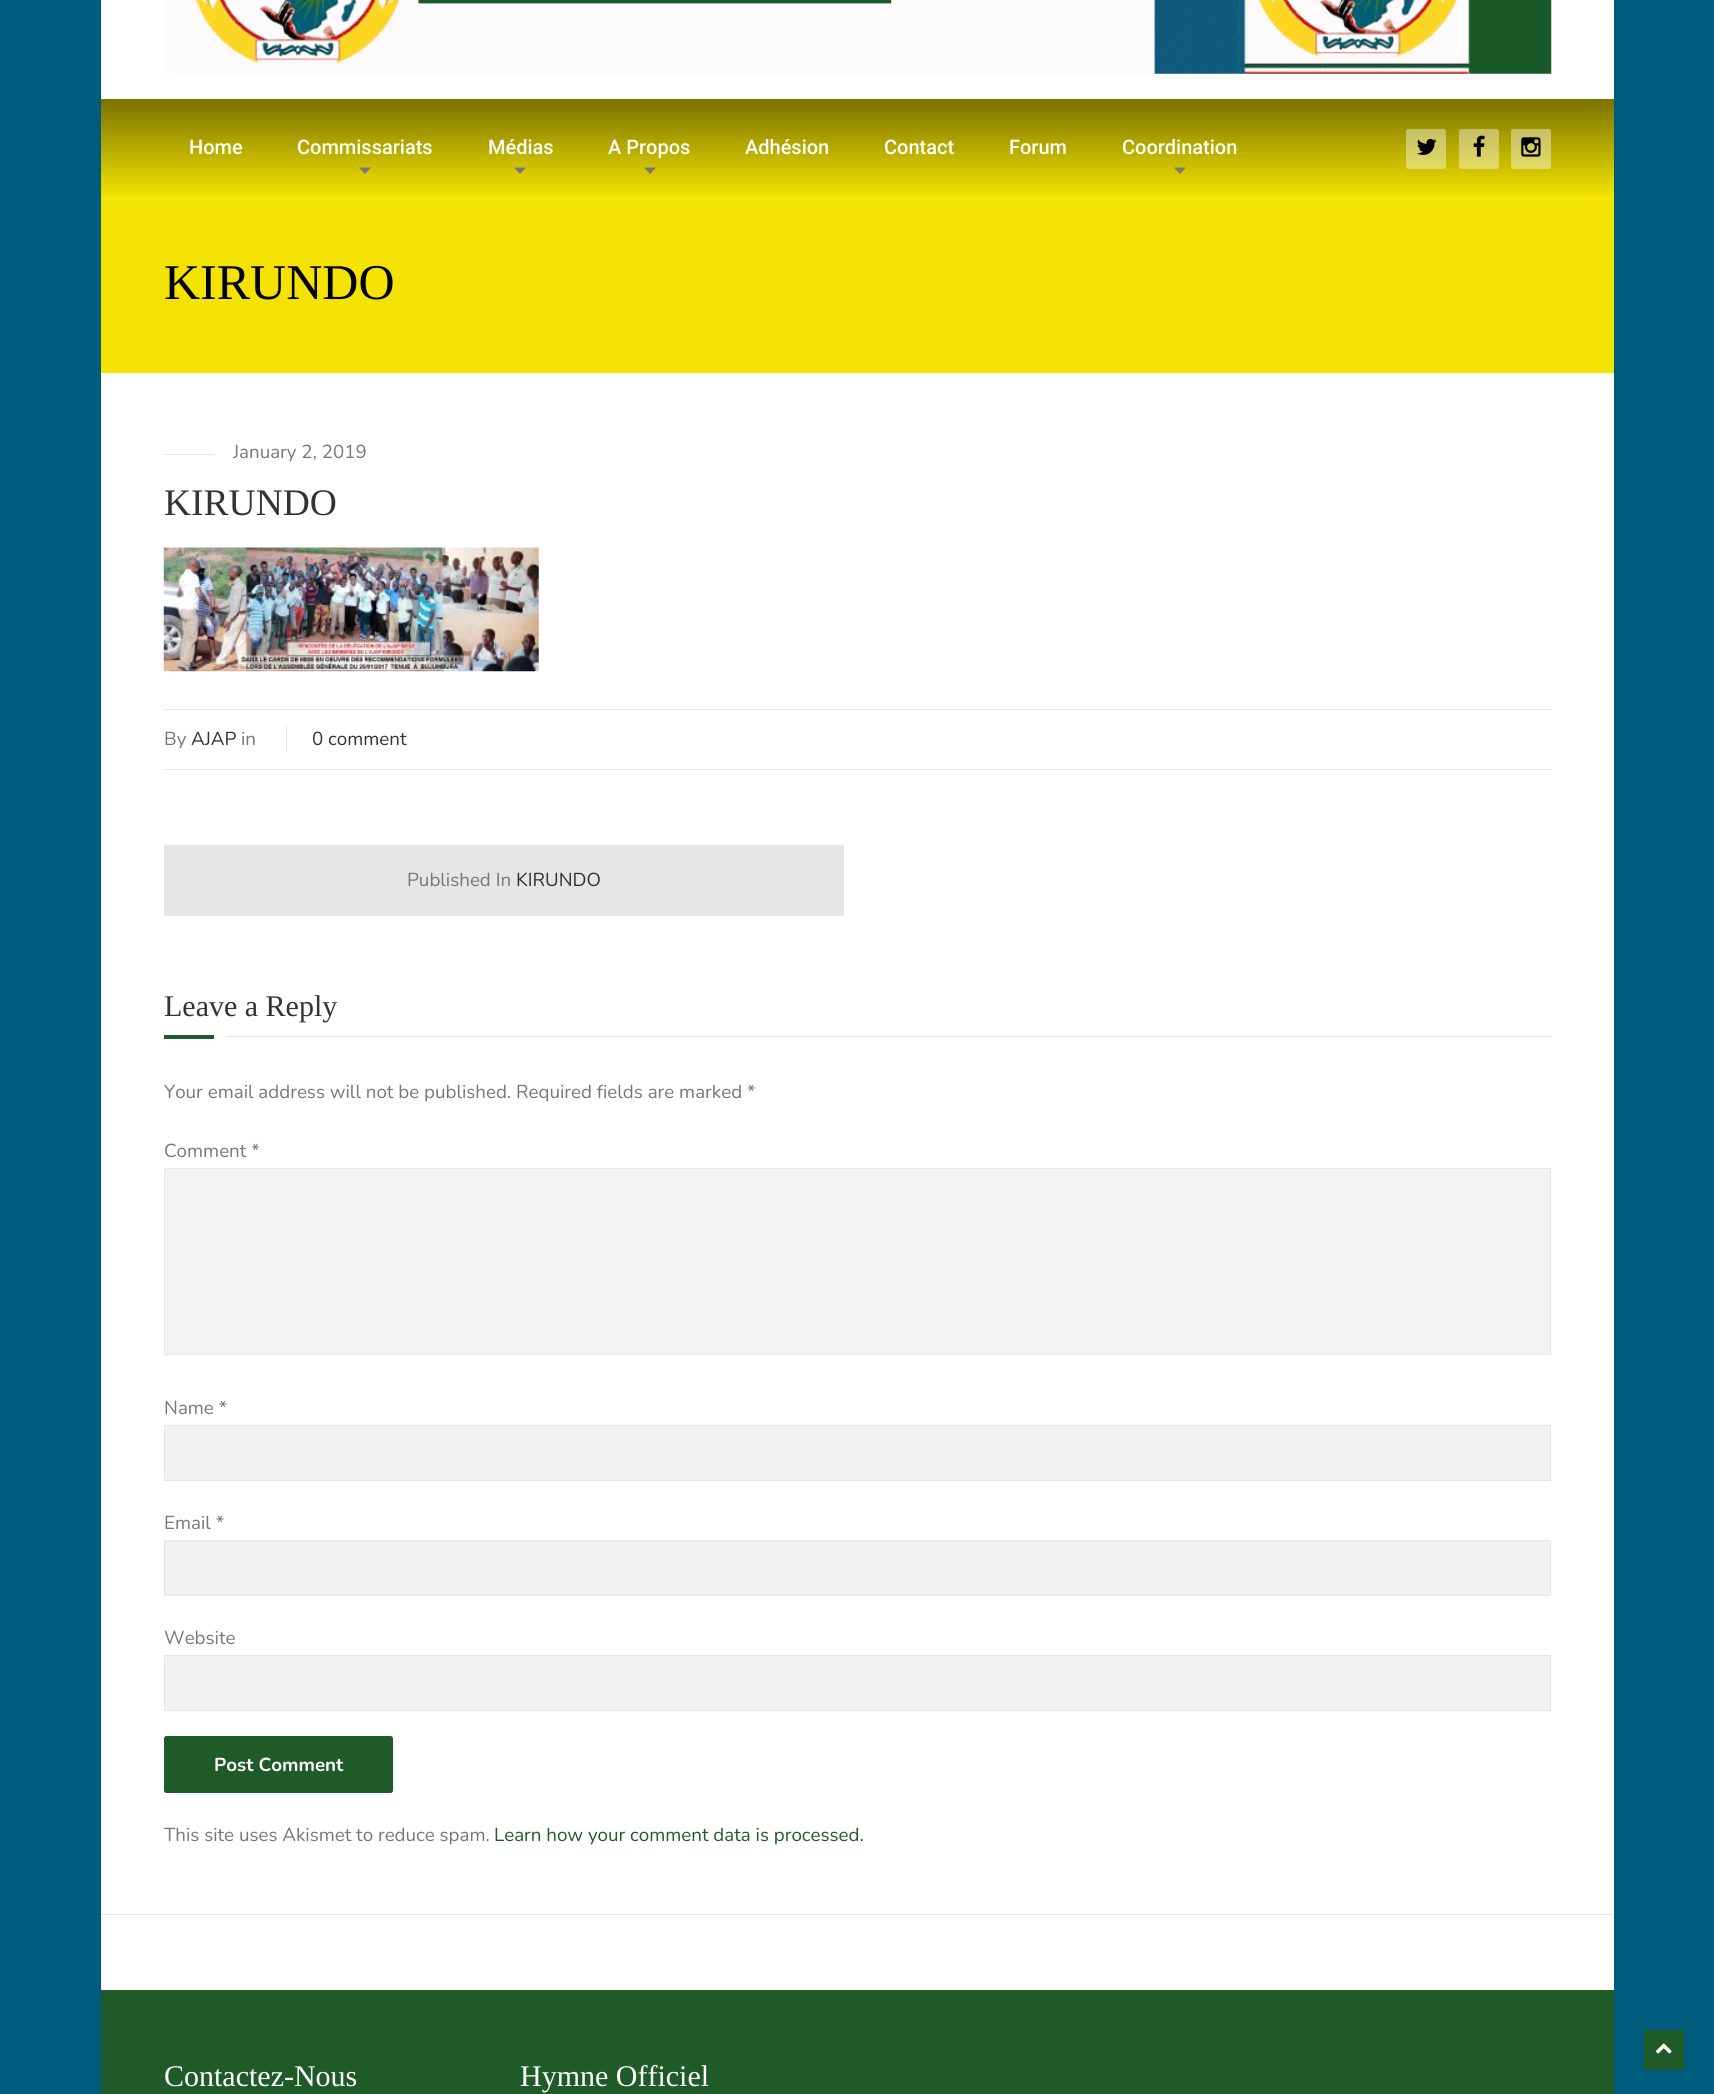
#include <cairo.h>
#include <math.h>
#include <stddef.h>

static cairo_t *c;
static void C(unsigned color){cairo_set_source_rgb(c, (color >> 16) / 255.0, (color >> 8 & 255) / 255.0, (color & 255) / 255.0);}
static void F(const char *family, double size, int italic, int bold){cairo_select_font_face(c, family, italic ? CAIRO_FONT_SLANT_ITALIC : CAIRO_FONT_SLANT_NORMAL,bold ? CAIRO_FONT_WEIGHT_BOLD : CAIRO_FONT_WEIGHT_NORMAL);cairo_set_font_size(c, size);}
static void T(double x, double y, const char *s){cairo_move_to(c, x, y);cairo_show_text(c, s);}
static void R(double x, double y, double w, double h){cairo_rectangle(c, x, y, w, h);cairo_fill(c);}
static void Q(double x, double y, double w, double h, double r){cairo_new_sub_path(c);cairo_arc(c, x + w - r, y + h - r, r, 0, M_PI / 2);cairo_arc(c, x + r, y + h - r, r, M_PI / 2, M_PI);cairo_arc(c, x + r, y + r, r, M_PI, 1.5 * M_PI);cairo_arc(c, x + w - r, y + r, r, 1.5 * M_PI, 2 * M_PI);cairo_close_path(c);}
static void S(double x, double y, double w, double h, double r, double blur, double alpha){cairo_push_group_with_content(c, CAIRO_CONTENT_ALPHA);cairo_set_operator(c, CAIRO_OPERATOR_SOURCE);for (int i = 15; i >= -15 && fmin(w, h) + blur * i / 3 > 0; i -= 2) {double e = blur * i / 6;cairo_set_source_rgba(c, 0, 0, 0, alpha * erfc((i - 1) / 8.5) / 2);Q(x - e, y - e, w + 2 * e, h + 2 * e, fmax(0, fmin(r + e + blur * .6, fmin(w, h) / 2 + e)));cairo_fill(c);}cairo_pattern_t *soft = cairo_pop_group(c);cairo_mask(c, soft);cairo_pattern_destroy(soft);}
static void I(const char *path, double x, double y, double w, double h){cairo_surface_t *image = cairo_image_surface_create_from_png(path);cairo_save(c);cairo_set_source_surface(c, image, x, y);cairo_rectangle(c, x, y, w, h);cairo_fill(c);cairo_restore(c);cairo_surface_destroy(image);}
int main(void) {
cairo_surface_t *surface = cairo_image_surface_create(CAIRO_FORMAT_RGB24, 1714, 2094);
c = cairo_create(surface);
cairo_font_options_t *options = cairo_font_options_create();
cairo_font_options_set_hint_metrics(options, CAIRO_HINT_METRICS_OFF);
cairo_font_options_set_hint_style(options, CAIRO_HINT_STYLE_NONE);
cairo_set_font_options(c, options);
cairo_set_miter_limit(c, 4);
cairo_pattern_t *gradient;
C(0x005d7e);
cairo_paint(c);
C(0x000000);
S(101,-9,1513,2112,0,3,.1);
C(0xffffff);
R(101,0,1513,1990);
I("1.png",164,0,1388,74);
gradient = cairo_pattern_create_linear(858,198,858,99);
cairo_pattern_add_color_stop_rgba(gradient,0,0.957,0.894,0,1);
cairo_pattern_add_color_stop_rgba(gradient,1,0.478,0.447,0,1);
cairo_set_source(c,gradient);
cairo_pattern_destroy(gradient);
R(101,99,1513,99);
C(0xf6e726);
R(101,198,1513,1);
F("Roboto Medium",20,0,0);
C(0xffffff);
T(189,154,"Home");
T(297,154,"Commissariats");
C(0x777777);
cairo_new_path(c);
cairo_move_to(c,359,167.5);
cairo_line_to(c,371,167.5);
cairo_line_to(c,365,174);
cairo_close_path(c);
cairo_fill(c);
C(0xffffff);
T(488,154,"Médias");
C(0x777777);
cairo_new_path(c);
cairo_move_to(c,514,167.5);
cairo_line_to(c,526,167.5);
cairo_line_to(c,520,174);
cairo_close_path(c);
cairo_fill(c);
C(0xffffff);
T(608,154,"A Propos");
C(0x777777);
cairo_new_path(c);
cairo_move_to(c,644,167.5);
cairo_line_to(c,656,167.5);
cairo_line_to(c,650,174);
cairo_close_path(c);
cairo_fill(c);
C(0xffffff);
T(745,154,"Adhésion");
T(884,154,"Contact");
T(1009,154,"Forum");
T(1122,154,"Coordination");
C(0x777777);
cairo_new_path(c);
cairo_move_to(c,1174,167.5);
cairo_line_to(c,1186,167.5);
cairo_line_to(c,1180,174);
cairo_close_path(c);
cairo_fill(c);
cairo_set_source_rgba(c,1,1,1,0.4);
Q(1406,129,40,40,2.5);
cairo_fill(c);
I("2.png",1417,138,20,17);
Q(1459,129,40,40,2.5);
cairo_fill(c);
I("3.png",1473,135,12,22);
Q(1511,129,40,40,2.5);
cairo_fill(c);
I("4.png",1521,137,20,20);
C(0xf4e300);
R(101,199,1513,174);
F("Liberation Serif",50,0,0);
C(0x010108);
T(164,299,"KIRUNDO");
C(0xe6e6e6);
R(164,454,50,1);
F("Nunito",18.75,0,0);
C(0x777777);
T(233,458,"January 2, 2019");
F("Liberation Serif",37.5,0,0);
C(0x333333);
T(164,515,"KIRUNDO");
I("5.png",163,547,376,125);
C(0xe6e6e6);
R(164,709,1387,1);
R(164,769,1387,1);
F("Nunito",18.75,0,0);
C(0x777777);
T(164,745,"By");
C(0x333333);
T(191,745,"AJAP");
C(0x777777);
T(241,745,"in");
C(0x333333);
T(312,745,"0 comment");
C(0xe6e6e6);
R(286,726,1,25);
R(164,845,680,71);
C(0x777777);
T(407,886,"Published In");
C(0x333333);
T(516,886,"KIRUNDO");
F("Liberation Serif",30,0,0);
T(164,1016,"Leave a Reply");
C(0x1f5b28);
R(164,1035,50,4);
C(0xe6e6e6);
R(226,1036,1325,1);
F("Nunito",18.75,0,0);
C(0x777777);
T(164,1098,"Your email address will not be published. Required fields are marked *");
T(164,1157,"Comment *");
C(0xf3f3f3);
Q(164,1168,1387,187,2.5);
cairo_fill(c);
cairo_rectangle(c,164.5,1168.5,1386,186);
cairo_set_source_rgba(c,0,0,0,0.06);
cairo_set_line_width(c,1);
cairo_stroke(c);
C(0x777777);
T(164,1414,"Name *");
C(0xf2f2f2);
Q(164,1425,1387,56,2.5);
cairo_fill(c);
cairo_rectangle(c,164.5,1425.5,1386,55);
cairo_set_source_rgba(c,0,0,0,0.06);
cairo_stroke(c);
C(0x777777);
T(164,1529,"Email *");
C(0xf2f2f2);
Q(164,1540,1387,56,2.5);
cairo_fill(c);
cairo_rectangle(c,164.5,1540.5,1386,55);
cairo_set_source_rgba(c,0,0,0,0.06);
cairo_stroke(c);
C(0x777777);
T(164,1644,"Website");
C(0xf2f2f2);
Q(164,1655,1387,56,2.5);
cairo_fill(c);
cairo_rectangle(c,164.5,1655.5,1386,55);
cairo_set_source_rgba(c,0,0,0,0.06);
cairo_stroke(c);
C(0x1f5b28);
Q(164,1736,229,57,2.5);
cairo_fill(c);
F("Nunito",18.75,0,1);
C(0xffffff);
T(214,1771,"Post Comment");
F("Nunito",18.75,0,0);
C(0x777777);
T(164,1841,"This site uses Akismet to reduce spam.");
C(0x1f5b28);
T(494,1841,"Learn how your comment data is processed.");
C(0xe6e6e6);
R(101,1914,1513,1);
C(0x1f5b28);
R(101,1990,1513,104);
F("Liberation Serif",30,0,0);
C(0xffffff);
T(164,2086,"Contactez-Nous");
T(520,2086,"Hymne Officiel");
C(0x000000);
S(1644,2030,40,40,2.5,2,.1);
C(0x1f5b28);
Q(1644,2030,40,40,2.5);
cairo_fill(c);
I("6.png",1655,2043,17,11);
cairo_surface_write_to_png(surface, "o.png");
cairo_font_options_destroy(options);
cairo_destroy(c);
cairo_surface_destroy(surface);
return 0;
}
